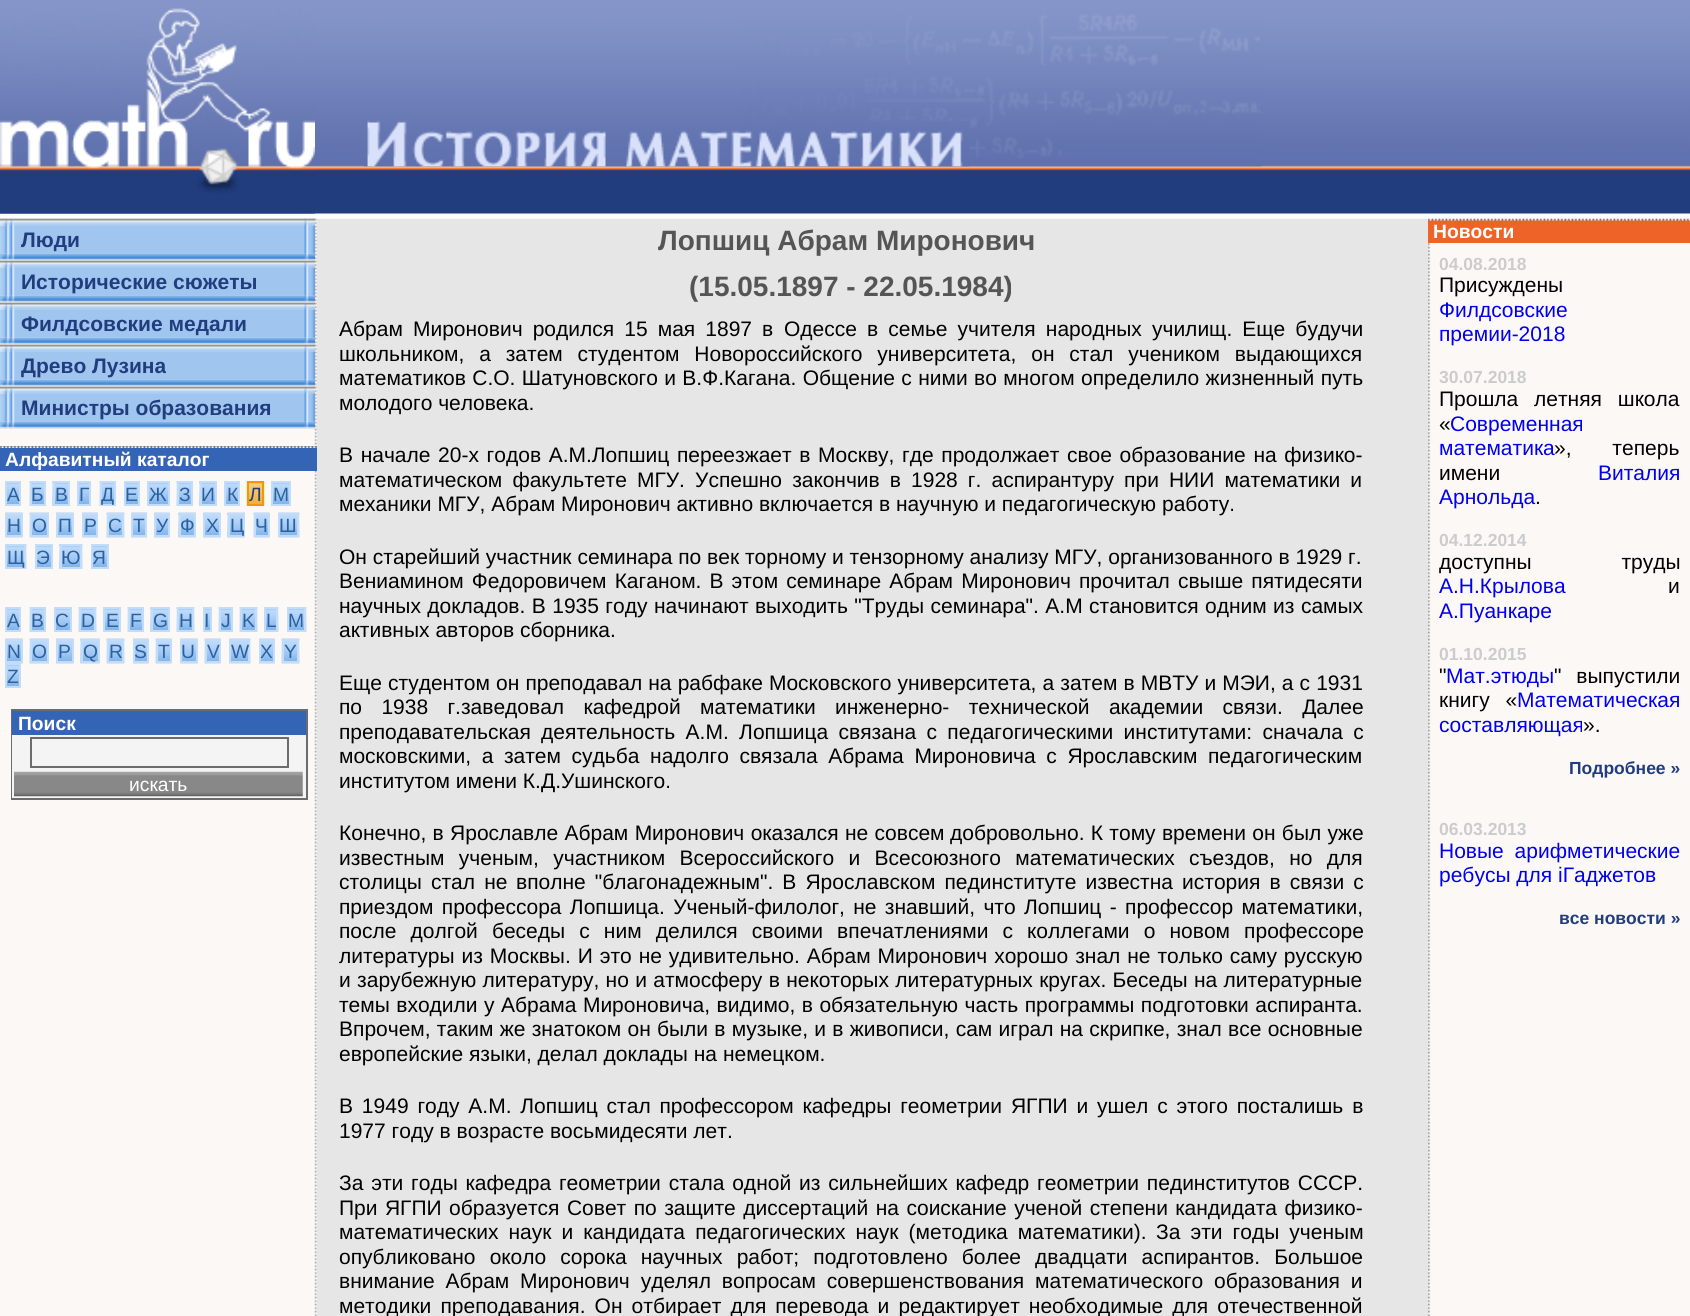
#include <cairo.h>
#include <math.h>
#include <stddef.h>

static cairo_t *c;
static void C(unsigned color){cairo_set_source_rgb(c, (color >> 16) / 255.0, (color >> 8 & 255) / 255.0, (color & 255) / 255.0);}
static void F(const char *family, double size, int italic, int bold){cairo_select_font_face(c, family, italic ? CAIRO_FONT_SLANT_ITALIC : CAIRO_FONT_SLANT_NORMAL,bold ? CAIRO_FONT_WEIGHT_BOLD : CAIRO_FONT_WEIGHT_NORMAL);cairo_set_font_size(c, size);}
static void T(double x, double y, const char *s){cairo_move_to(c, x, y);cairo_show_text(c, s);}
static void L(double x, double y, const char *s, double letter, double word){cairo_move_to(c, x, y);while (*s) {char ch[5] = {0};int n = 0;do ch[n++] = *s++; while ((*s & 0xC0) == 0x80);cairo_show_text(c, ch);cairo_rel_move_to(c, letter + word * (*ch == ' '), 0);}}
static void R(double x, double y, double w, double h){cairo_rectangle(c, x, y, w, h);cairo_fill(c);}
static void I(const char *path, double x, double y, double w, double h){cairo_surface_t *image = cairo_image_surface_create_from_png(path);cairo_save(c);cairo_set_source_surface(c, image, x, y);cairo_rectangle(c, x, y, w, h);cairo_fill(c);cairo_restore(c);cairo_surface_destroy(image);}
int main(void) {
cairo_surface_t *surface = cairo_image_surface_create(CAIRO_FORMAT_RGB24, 1690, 1316);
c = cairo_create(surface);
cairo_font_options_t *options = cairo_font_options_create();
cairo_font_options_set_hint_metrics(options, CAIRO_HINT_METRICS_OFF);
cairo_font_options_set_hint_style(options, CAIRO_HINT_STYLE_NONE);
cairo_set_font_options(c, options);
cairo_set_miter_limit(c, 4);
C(0xe6e6e6);
cairo_paint(c);
I("1.png",0,0,1690,219);
I("2.png",0,8,315,206);
I("3.png",740,14,522,153);
I("4.png",364,120,606,47);
C(0xfcf8f5);
R(0,219,317,1097);
I("5.png",314,218,3,1098);
I("6.png",0,218,315,8);
I("8.png",0,225,315,29);
I("7.png",0,218,315,8);
F("Liberation Sans",21,0,1);
C(0x213d7e);
T(21,247,"Люди");
I("9.png",0,253,315,8);
I("11.png",0,260,315,8);
I("10.png",0,253,315,8);
I("8.png",0,267,315,29);
I("12.png",0,260,315,8);
T(21,289,"Исторические сюжеты");
I("9.png",0,295,315,8);
I("11.png",0,302,315,8);
I("10.png",0,295,315,8);
I("8.png",0,309,315,29);
I("12.png",0,302,315,8);
T(21,331,"Филдсовские медали");
I("9.png",0,337,315,8);
I("11.png",0,344,315,8);
I("10.png",0,337,315,8);
I("8.png",0,351,315,29);
I("12.png",0,344,315,8);
T(21,373,"Древо Лузина");
I("9.png",0,379,315,8);
I("11.png",0,386,315,8);
I("10.png",0,379,315,8);
I("8.png",0,393,315,29);
I("12.png",0,386,315,8);
T(21,415,"Министры образования");
I("9.png",0,421,315,8);
I("13.png",0,421,315,8);
C(0x3464b6);
R(0,446,317,25);
I("14.png",0,446,317,2);
F("Liberation Sans",19.25,0,1);
C(0xffffff);
T(5,466,"Алфавитный каталог");
I("15.png",7,483,12,21);
I("16.png",29,481,15,25);
I("17.png",52,481,16,25);
I("18.png",79,483,10,21);
I("16.png",99,481,15,25);
I("15.png",126,483,12,21);
I("19.png",149,483,19,21);
I("16.png",176,481,15,25);
I("17.png",199,481,16,25);
I("20.png",226,483,12,21);
I("21.png",246,481,19,25);
I("22.png",273,483,16,21);
cairo_rectangle(c,6,482,14,23);
C(0xc1ddfa);
cairo_stroke(c);
F("Liberation Sans",19.25,0,0);
C(0x2b619e);
T(7,501,"А");
cairo_rectangle(c,31,482,14,23);
C(0xc1ddfa);
cairo_stroke(c);
C(0x2b619e);
T(31,501,"Б");
cairo_rectangle(c,54,482,15,23);
C(0xc1ddfa);
cairo_stroke(c);
C(0x2b619e);
T(55,501,"В");
cairo_rectangle(c,78,482,12,23);
C(0xc1ddfa);
cairo_stroke(c);
C(0x2b619e);
T(79,501,"Г");
cairo_rectangle(c,101,482,14,23);
C(0xc1ddfa);
cairo_stroke(c);
C(0x2b619e);
T(101,501,"Д");
cairo_rectangle(c,125,482,14,23);
C(0xc1ddfa);
cairo_stroke(c);
C(0x2b619e);
T(125,501,"Е");
cairo_rectangle(c,148,482,21,23);
C(0xc1ddfa);
cairo_stroke(c);
C(0x2b619e);
T(149,501,"Ж");
cairo_rectangle(c,178,482,14,23);
C(0xc1ddfa);
cairo_stroke(c);
C(0x2b619e);
T(179,501,"З");
cairo_rectangle(c,201,482,15,23);
C(0xc1ddfa);
cairo_stroke(c);
C(0x2b619e);
T(201,501,"И");
cairo_rectangle(c,225,482,14,23);
C(0xc1ddfa);
cairo_stroke(c);
C(0x2b619e);
T(227,501,"К");
cairo_rectangle(c,248,482,15,23);
C(0xeb9a09);
cairo_stroke(c);
C(0x213d7e);
T(249,501,"Л");
cairo_rectangle(c,272,482,18,23);
C(0xc1ddfa);
cairo_stroke(c);
C(0x2b619e);
T(273,501,"М");
I("23.png",5,512,18,26);
I("24.png",29,512,20,26);
I("25.png",56,512,18,26);
I("26.png",82,512,16,26);
I("27.png",106,512,19,26);
I("26.png",131,512,16,26);
I("28.png",154,512,16,26);
I("29.png",178,512,18,26);
I("25.png",203,512,18,26);
I("29.png",227,512,18,26);
I("30.png",253,512,17,26);
I("31.png",278,512,22,26);
cairo_rectangle(c,6,514,16,22);
C(0xc1ddfa);
cairo_stroke(c);
C(0x2b619e);
T(7,532,"Н");
cairo_rectangle(c,31,514,17,22);
C(0xc1ddfa);
cairo_stroke(c);
C(0x2b619e);
T(32,532,"О");
cairo_rectangle(c,57,514,16,22);
C(0xc1ddfa);
cairo_stroke(c);
C(0x2b619e);
T(58,532,"П");
cairo_rectangle(c,83,514,14,22);
C(0xc1ddfa);
cairo_stroke(c);
C(0x2b619e);
T(84,532,"Р");
cairo_rectangle(c,108,514,15,22);
C(0xc1ddfa);
cairo_stroke(c);
C(0x2b619e);
T(108,532,"С");
cairo_rectangle(c,132,514,14,22);
C(0xc1ddfa);
cairo_stroke(c);
C(0x2b619e);
T(133,532,"Т");
cairo_rectangle(c,155,514,14,22);
C(0xc1ddfa);
cairo_stroke(c);
C(0x2b619e);
T(156,532,"У");
cairo_rectangle(c,180,514,15,22);
C(0xc1ddfa);
cairo_stroke(c);
C(0x2b619e);
T(180,532,"Ф");
cairo_rectangle(c,204,514,16,22);
C(0xc1ddfa);
cairo_stroke(c);
C(0x2b619e);
T(206,532,"Х");
cairo_rectangle(c,229,514,15,22);
C(0xc1ddfa);
cairo_stroke(c);
C(0x2b619e);
T(230,532,"Ц");
cairo_rectangle(c,255,514,14,22);
C(0xc1ddfa);
cairo_stroke(c);
C(0x2b619e);
T(255,532,"Ч");
cairo_rectangle(c,279,514,19,22);
C(0xc1ddfa);
cairo_stroke(c);
C(0x2b619e);
T(279,532,"Ш");
I("32.png",7,544,20,25);
I("33.png",37,546,14,21);
I("34.png",59,544,24,25);
I("33.png",93,546,14,21);
cairo_rectangle(c,6,545,19,23);
C(0xc1ddfa);
cairo_stroke(c);
C(0x2b619e);
T(7,564,"Щ");
cairo_rectangle(c,36,545,16,23);
C(0xc1ddfa);
cairo_stroke(c);
C(0x2b619e);
T(36,564,"Э");
cairo_rectangle(c,61,545,20,23);
C(0xc1ddfa);
cairo_stroke(c);
C(0x2b619e);
T(61,564,"Ю");
cairo_rectangle(c,92,545,16,23);
C(0xc1ddfa);
cairo_stroke(c);
C(0x2b619e);
T(92,564,"Я");
I("15.png",7,609,12,21);
I("16.png",29,607,15,25);
I("35.png",56,609,14,21);
I("36.png",78,607,19,25);
I("35.png",105,609,14,21);
I("16.png",127,607,15,25);
I("37.png",150,607,18,25);
I("36.png",176,607,19,25);
I("38.png",205,609,5,21);
I("39.png",218,607,13,25);
I("36.png",239,607,19,25);
I("40.png",266,607,13,25);
I("41.png",289,607,18,25);
cairo_rectangle(c,6,608,14,23);
C(0xc1ddfa);
cairo_stroke(c);
C(0x2b619e);
T(7,627,"A");
cairo_rectangle(c,31,608,14,23);
C(0xc1ddfa);
cairo_stroke(c);
C(0x2b619e);
T(31,627,"B");
cairo_rectangle(c,55,608,16,23);
C(0xc1ddfa);
cairo_stroke(c);
C(0x2b619e);
T(55,627,"C");
cairo_rectangle(c,80,608,15,23);
C(0xc1ddfa);
cairo_stroke(c);
C(0x2b619e);
T(81,627,"D");
cairo_rectangle(c,104,608,16,23);
C(0xc1ddfa);
cairo_stroke(c);
C(0x2b619e);
T(106,627,"E");
cairo_rectangle(c,129,608,14,23);
C(0xc1ddfa);
cairo_stroke(c);
C(0x2b619e);
T(130,627,"F");
cairo_rectangle(c,152,608,17,23);
C(0xc1ddfa);
cairo_stroke(c);
C(0x2b619e);
T(153,627,"G");
cairo_rectangle(c,178,608,15,23);
C(0xc1ddfa);
cairo_stroke(c);
C(0x2b619e);
T(179,627,"H");
cairo_rectangle(c,204,608,7,23);
C(0xc1ddfa);
cairo_stroke(c);
C(0x2b619e);
T(204,627,"I");
cairo_rectangle(c,220,608,12,23);
C(0xc1ddfa);
cairo_stroke(c);
C(0x2b619e);
T(221,627,"J");
cairo_rectangle(c,241,608,15,23);
C(0xc1ddfa);
cairo_stroke(c);
C(0x2b619e);
T(242,627,"K");
cairo_rectangle(c,265,608,12,23);
C(0xc1ddfa);
cairo_stroke(c);
C(0x2b619e);
T(266,627,"L");
cairo_rectangle(c,288,608,17,23);
C(0xc1ddfa);
cairo_stroke(c);
C(0x2b619e);
T(288,627,"M");
I("23.png",5,638,18,26);
I("24.png",29,638,20,26);
I("25.png",56,638,18,26);
I("42.png",80,638,20,26);
I("27.png",106,638,19,26);
I("28.png",133,638,16,26);
I("30.png",155,638,17,26);
I("23.png",180,638,18,26);
I("30.png",204,638,17,26);
I("31.png",229,638,22,26);
I("28.png",259,638,16,26);
I("27.png",281,638,19,26);
cairo_rectangle(c,6,640,16,22);
C(0xc1ddfa);
cairo_stroke(c);
C(0x2b619e);
T(7,658,"N");
cairo_rectangle(c,31,640,17,22);
C(0xc1ddfa);
cairo_stroke(c);
C(0x2b619e);
T(32,658,"O");
cairo_rectangle(c,57,640,16,22);
C(0xc1ddfa);
cairo_stroke(c);
C(0x2b619e);
T(58,658,"P");
cairo_rectangle(c,82,640,17,22);
C(0xc1ddfa);
cairo_stroke(c);
C(0x2b619e);
T(83,658,"Q");
cairo_rectangle(c,108,640,15,22);
C(0xc1ddfa);
cairo_stroke(c);
C(0x2b619e);
T(109,658,"R");
cairo_rectangle(c,134,640,14,22);
C(0xc1ddfa);
cairo_stroke(c);
C(0x2b619e);
T(134,658,"S");
cairo_rectangle(c,157,640,14,22);
C(0xc1ddfa);
cairo_stroke(c);
C(0x2b619e);
T(158,658,"T");
cairo_rectangle(c,181,640,16,22);
C(0xc1ddfa);
cairo_stroke(c);
C(0x2b619e);
T(181,658,"U");
cairo_rectangle(c,206,640,14,22);
C(0xc1ddfa);
cairo_stroke(c);
C(0x2b619e);
T(207,658,"V");
cairo_rectangle(c,230,640,19,22);
C(0xc1ddfa);
cairo_stroke(c);
C(0x2b619e);
T(231,658,"W");
cairo_rectangle(c,260,640,14,22);
C(0xc1ddfa);
cairo_stroke(c);
C(0x2b619e);
T(260,658,"X");
cairo_rectangle(c,283,640,15,22);
C(0xc1ddfa);
cairo_stroke(c);
C(0x2b619e);
T(284,658,"Y");
I("15.png",7,665,12,21);
cairo_rectangle(c,6,664,14,23);
C(0xc1ddfa);
cairo_stroke(c);
C(0x2b619e);
T(7,683,"Z");
C(0x6c6c6c);
R(11,709,297,91);
C(0xf4f4f4);
R(12,735,294,63);
C(0x3464b6);
R(12,711,294,24);
F("Liberation Sans",19.25,0,1);
C(0xffffff);
T(18,730,"Поиск");
cairo_rectangle(c,31,738,257,29);
C(0x6c6c6c);
cairo_stroke(c);
I("43.png",14,771,289,26);
F("Liberation Sans",19.25,0,0);
C(0xffffff);
T(129,791,"искать");
F("Liberation Sans",28,0,1);
C(0x555555);
T(658,250,"Лопшиц Абрам Миронович");
T(689,296,"(15.05.1897 - 22.05.1984)");
F("Liberation Sans",21,0,0);
C(0x000000);
L(339,336,"Абрам Миронович родился 15 мая 1897",0,4.25);
T(762,336,"в");
L(784,336,"Одессе в семье учителя народных училищ. Еще будучи",0,4.25);
L(339,361,"школьником, а затем студентом Новороссийского университета, он стал учеником выдающихся",0,9);
L(339,385,"математиков С.О. Шатуновского и В.Ф.Кагана. Общение с ними во многом определило жизненный путь",0,.5);
T(339,410,"молодого человека.");
L(339,462,"В начале 20-х годов А.М.Лопшиц переезжает в Москву, где продолжает свое образование на физико-",0,1.8);
L(339,487,"математическом факультете МГУ. Успешно закончив в 1928 г. аспирантуру при НИИ математики и",0,4.25);
T(339,511,"механики МГУ, Абрам Миронович активно включается в научную и педагогическую работу.");
T(339,564,"Он старейший участник семинара по век торному и тензорному анализу МГУ, организованного в 1929 г.");
L(339,588,"Вениамином Федоровичем Каганом. В этом семинаре Абрам Миронович прочитал свыше пятидесяти",0,2.25);
L(339,613,"научных докладов. В 1935 году начинают выходить \"Труды семинара\". А.М становится одним из самых",0,.6);
T(339,637,"активных авторов сборника.");
L(339,690,"Еще студентом он преподавал на рабфаке Московского университета, а затем в МВТУ и МЭИ, а с 1931",0,.25);
L(339,714,"по 1938 г.заведовал кафедрой математики инженерно- технической академии связи. Далее",0,13.5);
L(339,739,"преподавательская деятельность А.М. Лопшица связана с педагогическими институтами: сначала с",0,4.5);
L(339,763,"московскими, а затем судьба надолго связала Абрама Мироновича с Ярославским педагогическим",0,4.75);
T(339,788,"институтом имени К.Д.Ушинского.");
L(339,840,"Конечно, в Ярославле Абрам Миронович оказался не совсем",0,.5);
L(950,840,"добровольно. К тому времени он был уже",0,.5);
L(339,865,"известным ученым, участником Всероссийского и Всесоюзного математических съездов, но для",0,8.5);
L(339,889,"столицы стал не",0,3.25);
L(516,889,"вполне \"благонадежным\". В Ярославском пединституте известна история в связи с",0,3.25);
L(339,914,"приездом профессора Лопшица. Ученый-филолог, не знавший, что Лопшиц - профессор математики,",0,2.5);
L(339,938,"после долгой беседы с ним делился своими впечатлениями с коллегами о новом профессоре",0,8.25);
L(339,963,"литературы из Москвы. И это не удивительно. Абрам Миронович хорошо знал не только саму русскую",0,1.1);
L(339,987,"и зарубежную литературу, но и атмосферу в некоторых литературных кругах. Беседы на литературные",0,.5);
L(339,1012,"темы входили у Абрама Мироновича, видимо, в обязательную часть программы подготовки аспиранта.",0,.6);
L(339,1036,"Впрочем, таким же знатоком он были в музыке, и в живописи, сам играл на скрипке, знал все основные",0,.4);
T(339,1061,"европейские языки, делал доклады на немецком.");
L(339,1113,"В 1949 году А.М. Лопшиц стал профессором кафедры геометрии ЯГПИ и ушел с этого посталишь в",0,3);
T(339,1138,"1977 году в возрасте восьмидесяти лет.");
L(339,1190,"За эти годы кафедра геометрии стала одной из сильнейших кафедр геометрии пединститутов СССР.",0,2);
L(339,1215,"При ЯГПИ образуется Совет по защите диссертаций на соискание ученой степени кандидата физико-",0,1.6);
L(339,1239,"математических наук и кандидата педагогических наук (методика математики).",0,4.25);
L(1156,1239,"За эти годы ученым",0,4.25);
L(339,1264,"опубликовано около сорока научных работ; подготовлено более двадцати аспирантов. Большое",0,8.25);
L(339,1288,"внимание Абрам Миронович уделял вопросам совершенствования математического образования и",0,5);
L(339,1313,"методики преподавания. Он отбирает для перевода и редактирует необходимые для отечественной",0,3.25);
C(0xfcf8f5);
R(1428,243,262,1073);
I("44.png",1428,218,3,1098);
C(0xee6428);
R(1428,220,262,23);
I("45.png",1428,218,262,3);
F("Liberation Sans",19.25,0,1);
C(0xffffff);
T(1433,238,"Новости");
F("Liberation Sans",17.5,0,1);
C(0xcccccc);
T(1439,270,"04.08.2018");
F("Liberation Sans",21,0,0);
C(0x000000);
T(1439,292,"Присуждены");
C(0x0000ee);
T(1439,317,"Филдсовские");
T(1439,341,"премии-2018");
F("Liberation Sans",17.5,0,1);
C(0xcccccc);
T(1439,383,"30.07.2018");
F("Liberation Sans",21,0,0);
C(0x000000);
L(1439,406,"Прошла летняя школа",0,10);
T(1439,431,"«");
C(0x0000ee);
T(1450,431,"Современная");
T(1439,455,"математика");
C(0x000000);
L(1554,455,"», теперь",0,35);
T(1439,480,"имени");
C(0x0000ee);
T(1598,480,"Виталия");
T(1439,504,"Арнольда");
C(0x000000);
T(1535,504,".");
F("Liberation Sans",17.5,0,1);
C(0xcccccc);
T(1439,546,"04.12.2014");
F("Liberation Sans",21,0,0);
C(0x000000);
L(1439,569,"доступны труды",0,84);
C(0x0000ee);
T(1439,593,"А.Н.Крылова");
C(0x000000);
T(1668,593,"и");
C(0x0000ee);
T(1439,618,"А.Пуанкаре");
F("Liberation Sans",17.5,0,1);
C(0xcccccc);
T(1439,660,"01.10.2015");
F("Liberation Sans",21,0,0);
C(0x000000);
T(1439,683,"\"");
C(0x0000ee);
T(1446,683,"Мат.этюды");
C(0x000000);
L(1554,683,"\" выпустили",0,9);
L(1439,707,"книгу «",0,10);
C(0x0000ee);
T(1517,707,"Математическая");
T(1439,732,"составляющая");
C(0x000000);
T(1583,732,"».");
F("Liberation Sans",17.5,0,1);
C(0x213d7e);
T(1569,774,"Подробнее »");
C(0xcccccc);
T(1439,835,"06.03.2013");
F("Liberation Sans",21,0,0);
C(0x0000ee);
L(1439,858,"Новые арифметические",0,5);
T(1439,882,"ребусы для iГаджетов");
F("Liberation Sans",17.5,0,1);
C(0x213d7e);
T(1559,924,"все новости »");
cairo_surface_write_to_png(surface, "o.png");
cairo_font_options_destroy(options);
cairo_destroy(c);
cairo_surface_destroy(surface);
return 0;
}
